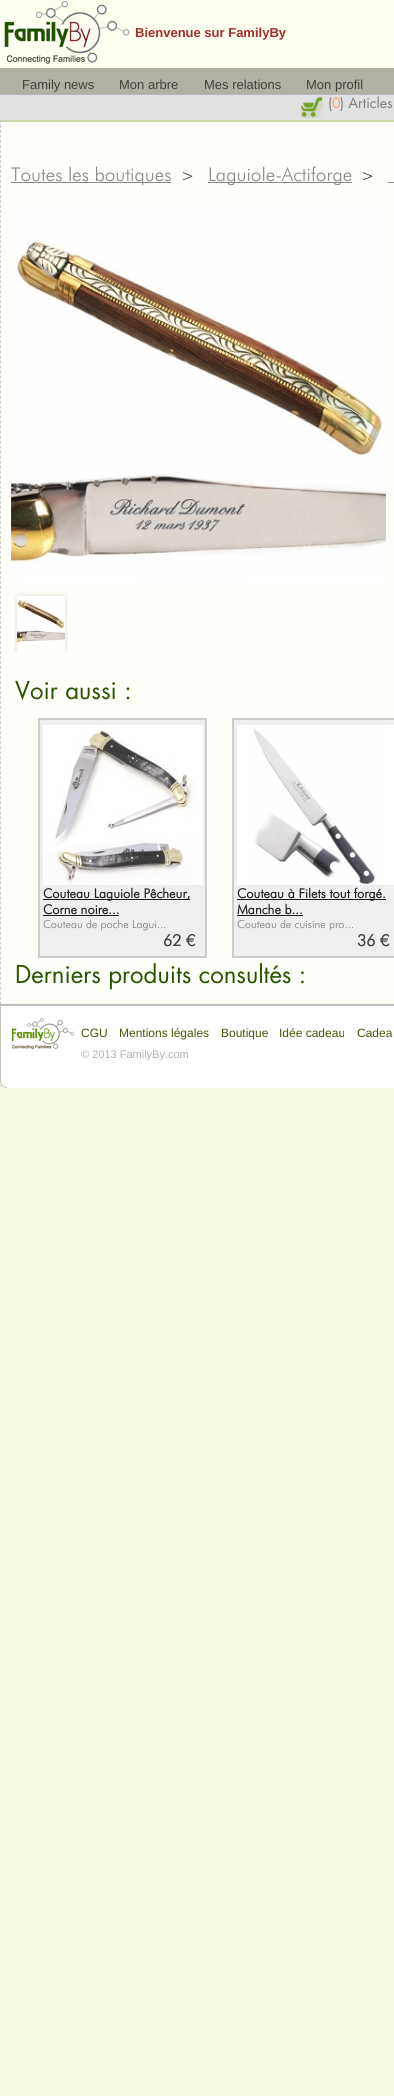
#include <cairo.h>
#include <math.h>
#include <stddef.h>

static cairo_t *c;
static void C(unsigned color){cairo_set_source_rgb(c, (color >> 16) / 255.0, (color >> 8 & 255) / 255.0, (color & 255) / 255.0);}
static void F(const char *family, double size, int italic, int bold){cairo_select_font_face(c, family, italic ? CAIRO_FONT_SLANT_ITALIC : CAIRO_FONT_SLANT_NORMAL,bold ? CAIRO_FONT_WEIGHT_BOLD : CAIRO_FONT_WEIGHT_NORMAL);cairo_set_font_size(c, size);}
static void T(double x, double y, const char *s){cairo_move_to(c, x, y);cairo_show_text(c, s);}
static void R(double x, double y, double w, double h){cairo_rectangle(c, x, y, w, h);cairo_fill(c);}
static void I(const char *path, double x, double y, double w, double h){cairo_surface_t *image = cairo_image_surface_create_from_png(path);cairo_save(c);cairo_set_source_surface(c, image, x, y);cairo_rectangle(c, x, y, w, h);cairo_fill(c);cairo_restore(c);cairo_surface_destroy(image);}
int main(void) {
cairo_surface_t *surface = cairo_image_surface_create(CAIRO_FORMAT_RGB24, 394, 2096);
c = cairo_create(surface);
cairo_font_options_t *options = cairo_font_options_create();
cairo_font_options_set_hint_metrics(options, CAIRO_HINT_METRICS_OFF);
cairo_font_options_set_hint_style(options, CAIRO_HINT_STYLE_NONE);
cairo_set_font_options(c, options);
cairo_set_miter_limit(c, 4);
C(0xf4f6e1);
cairo_paint(c);
C(0xffffef);
R(0,0,394,68);
I("1.png",4,0,126,64);
F("Liberation Sans",13,0,1);
C(0xa52a2a);
T(135,37,"Bienvenue sur FamilyBy");
C(0xb1b0a2);
R(0,68,394,26);
F("Liberation Sans",13,0,0);
C(0x404040);
T(22,89,"Family news");
T(119,89,"Mon arbre");
T(204,89,"Mes relations");
T(306,89,"Mon profil");
C(0xe1e1e1);
R(0,95,394,25);
C(0xb6b6b6);
R(0,94,394,1);
I("2.png",300,96,23,22);
F("Futura",14,0,0);
C(0x7d7d7d);
T(328,108,"(");
C(0xffa05e);
T(332,108,"0");
C(0x7d7d7d);
T(340,108,") Articles");
C(0xfffffa);
R(0,122,394,882);
C(0xc7d8a4);
cairo_new_path(c);
cairo_move_to(c,0,120);
cairo_line_to(c,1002,120);
cairo_line_to(c,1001,122);
cairo_line_to(c,1,122);
cairo_close_path(c);
cairo_fill(c);
cairo_new_path(c);
cairo_move_to(c,.5,120);
cairo_line_to(c,.5,1004);
C(0xcccccc);
cairo_set_line_width(c,1);
cairo_set_dash(c,(double[]){3,2.01},2,0);
cairo_stroke(c);
C(0x8a8989);
R(11,182,160,1);
F("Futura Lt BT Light",19,0,0);
T(11,181,"Toutes les boutiques");
F("Futura Lt BT Light",16,0,0);
C(0x000000);
T(181,181,">");
C(0x8a8989);
R(208,182,144,1);
F("Futura Lt BT Light",19,0,0);
T(208,181,"Laguiole-Actiforge");
F("Futura Lt BT Light",16,0,0);
C(0x000000);
T(361,181,">");
C(0x8a8989);
R(388,182,6,1);
I("3.png",11,210,375,375);
I("4.png",14,592,54,60);
I("5.png",17,596,48,48);
F("Futura",24,0,0);
C(0x265500);
T(15,699,"Voir aussi :");
C(0xefefef);
cairo_rectangle(c,39,719,167,238);
cairo_fill_preserve(c);
C(0xcccccc);
cairo_set_line_width(c,2);
cairo_set_dash(c,NULL,0,0);
cairo_stroke(c);
I("6.png",43,725,160,160);
C(0x1f1f1f);
R(43,899,147,1);
F("Futura Lt BT",13,0,1);
T(43,898,"Couteau Laguiole Pêcheur,");
T(43,914,"Corne noire...");
R(43,915,76,1);
F("Futura Lt BT Light",11,0,0);
C(0x777777);
T(43,928,"Couteau de poche Lagui...");
F("Futura Lt BT",16,0,1);
C(0x404040);
T(163,946,"62 €");
C(0xefefef);
cairo_rectangle(c,233,719,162,238);
cairo_fill_preserve(c);
C(0xcccccc);
cairo_stroke(c);
I("7.png",237,725,157,160);
C(0x1f1f1f);
R(237,899,149,1);
F("Futura Lt BT",13,0,1);
T(237,898,"Couteau à Filets tout forgé.");
T(237,914,"Manche b...");
R(237,915,66,1);
F("Futura Lt BT Light",11,0,0);
C(0x777777);
T(237,928,"Couteau de cuisine pro...");
F("Futura Lt BT",16,0,1);
C(0x404040);
T(357,946,"36 €");
F("Futura",24,0,0);
C(0x265500);
T(15,983,"Derniers produits consultés :");
I("8.png",0,1004,394,2);
I("9.png",0,1006,7,82);
C(0xffffff);
R(7,1006,387,82);
I("10.png",12,1018,62,31);
F("Liberation Sans",12,0,0);
C(0x445708);
T(81,1037,"CGU");
T(119,1037,"Mentions légales");
T(221,1037,"Boutique");
T(279,1037,"Idée cadeau");
T(357,1037,"Cadea");
F("Liberation Sans",11,0,0);
C(0xb1b1b1);
T(81,1058,"© 2013 FamilyBy.com");
cairo_surface_write_to_png(surface, "o.png");
cairo_font_options_destroy(options);
cairo_destroy(c);
cairo_surface_destroy(surface);
return 0;
}
